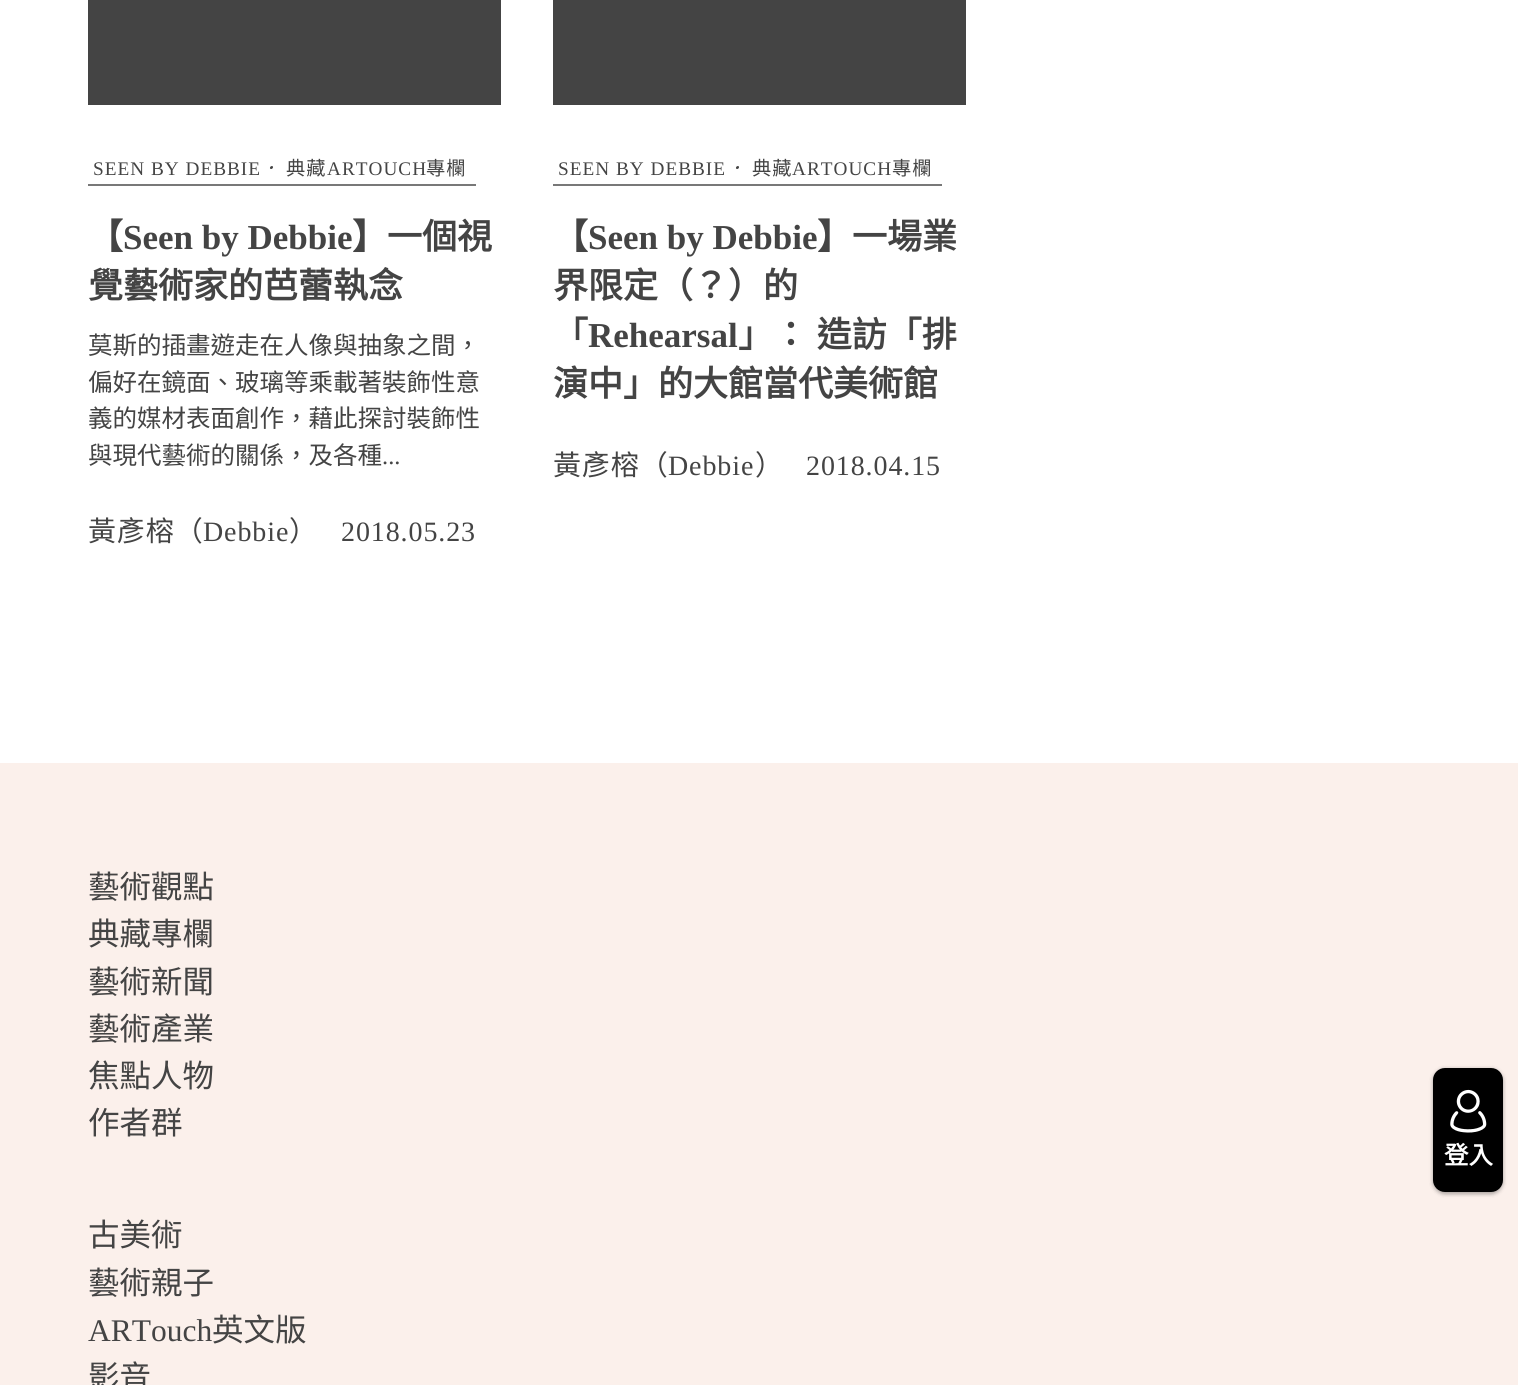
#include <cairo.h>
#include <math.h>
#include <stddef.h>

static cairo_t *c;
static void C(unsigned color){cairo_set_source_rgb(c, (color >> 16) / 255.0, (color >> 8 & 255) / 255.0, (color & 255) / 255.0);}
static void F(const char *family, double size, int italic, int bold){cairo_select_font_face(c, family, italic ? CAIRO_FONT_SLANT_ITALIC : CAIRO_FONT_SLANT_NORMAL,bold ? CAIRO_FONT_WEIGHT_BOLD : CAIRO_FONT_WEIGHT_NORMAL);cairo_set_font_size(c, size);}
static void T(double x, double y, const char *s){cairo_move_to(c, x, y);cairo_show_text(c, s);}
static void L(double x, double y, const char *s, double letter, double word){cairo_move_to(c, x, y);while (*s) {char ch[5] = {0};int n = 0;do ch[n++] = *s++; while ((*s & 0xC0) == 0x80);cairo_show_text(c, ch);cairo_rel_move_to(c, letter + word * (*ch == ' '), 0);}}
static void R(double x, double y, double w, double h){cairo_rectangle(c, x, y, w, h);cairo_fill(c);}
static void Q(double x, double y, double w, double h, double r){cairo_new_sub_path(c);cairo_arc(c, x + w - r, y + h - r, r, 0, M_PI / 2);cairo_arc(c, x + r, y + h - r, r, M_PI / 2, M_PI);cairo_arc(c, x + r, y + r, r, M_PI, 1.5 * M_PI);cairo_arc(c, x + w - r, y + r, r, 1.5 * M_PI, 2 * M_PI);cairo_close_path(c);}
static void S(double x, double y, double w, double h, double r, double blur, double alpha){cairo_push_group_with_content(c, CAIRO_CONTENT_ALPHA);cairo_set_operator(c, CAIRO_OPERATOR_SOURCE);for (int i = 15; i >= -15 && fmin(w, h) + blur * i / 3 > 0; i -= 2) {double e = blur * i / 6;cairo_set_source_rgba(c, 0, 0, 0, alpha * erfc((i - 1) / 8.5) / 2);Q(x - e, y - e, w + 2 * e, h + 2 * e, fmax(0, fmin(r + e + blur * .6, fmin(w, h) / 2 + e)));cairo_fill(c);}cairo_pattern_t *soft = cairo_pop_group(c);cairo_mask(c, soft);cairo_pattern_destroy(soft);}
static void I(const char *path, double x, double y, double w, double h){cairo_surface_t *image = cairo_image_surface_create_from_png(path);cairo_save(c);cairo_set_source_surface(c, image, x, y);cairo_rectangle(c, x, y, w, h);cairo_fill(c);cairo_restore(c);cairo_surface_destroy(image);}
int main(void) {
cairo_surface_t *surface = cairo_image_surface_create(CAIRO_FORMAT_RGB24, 1518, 1385);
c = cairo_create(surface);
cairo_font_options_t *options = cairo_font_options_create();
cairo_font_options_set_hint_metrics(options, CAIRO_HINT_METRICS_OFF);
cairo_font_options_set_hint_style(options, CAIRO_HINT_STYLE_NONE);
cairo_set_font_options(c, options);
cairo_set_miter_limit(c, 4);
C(0xffffff);
cairo_paint(c);
C(0x444444);
R(88,0,413,105);
C(0x787878);
R(88,184,388,2);
F("Liberation Serif",19.25,0,0);
C(0x444444);
L(93,175,"SEEN BY DEBBIE",1,0);
F("Noto Sans CJK TC",19.25,1,0);
L(260,175,"．",1,0);
F("Noto Sans CJK TC",19.25,0,0);
L(286,175,"典藏",1,0);
F("Liberation Serif",19.25,0,0);
L(327,175,"ARTOUCH",1,0);
F("Noto Sans CJK TC",19.25,0,0);
L(426,175,"專欄",1,0);
F("Noto Sans CJK TC",35,0,1);
T(88,249,"【");
F("Liberation Serif",35,0,1);
T(123,249,"Seen by Debbie");
F("Noto Sans CJK TC",35,0,1);
T(352,249,"】一個視");
T(88,298,"覺藝術家的芭蕾執念");
F("Noto Sans CJK TC",24.5,0,0);
T(88,354,"莫斯的插畫遊走在人像與抽象之間，");
T(88,391,"偏好在鏡面、玻璃等乘載著裝飾性意");
T(88,427,"義的媒材表面創作，藉此探討裝飾性");
T(88,464,"與現代藝術的關係，及各種");
F("Liberation Serif",24.5,0,0);
T(382,464,"...");
F("Noto Sans CJK TC",28,0,0);
L(88,541,"黃彥榕（",.9,0);
F("Liberation Serif",28,0,0);
L(203,541,"Debbie",.9,0);
F("Noto Sans CJK TC",28,0,0);
L(289,541,"）",.9,0);
F("Liberation Serif",28,0,0);
L(341,541,"2018.05.23",.9,0);
R(553,0,413,105);
C(0x787878);
R(553,184,389,2);
F("Liberation Serif",19.25,0,0);
C(0x444444);
L(558,175,"SEEN BY DEBBIE",1,0);
F("Noto Sans CJK TC",19.25,1,0);
L(726,175,"．",1,0);
F("Noto Sans CJK TC",19.25,0,0);
L(752,175,"典藏",1,0);
F("Liberation Serif",19.25,0,0);
L(792,175,"ARTOUCH",1,0);
F("Noto Sans CJK TC",19.25,0,0);
L(892,175,"專欄",1,0);
F("Noto Sans CJK TC",35,0,1);
T(553,249,"【");
F("Liberation Serif",35,0,1);
T(588,249,"Seen by Debbie");
F("Noto Sans CJK TC",35,0,1);
T(817,249,"】一場業");
T(553,298,"界限定（？）的");
T(553,347,"「");
F("Liberation Serif",35,0,1);
T(588,347,"Rehearsal");
F("Noto Sans CJK TC",35,0,1);
L(738,347,"」： 造訪「排",0,1);
T(553,396,"演中」的大館當代美術館");
F("Noto Sans CJK TC",28,0,0);
L(553,475,"黃彥榕（",.9,0);
F("Liberation Serif",28,0,0);
L(668,475,"Debbie",.9,0);
F("Noto Sans CJK TC",28,0,0);
L(755,475,"）",.9,0);
F("Liberation Serif",28,0,0);
L(806,475,"2018.04.15",.9,0);
C(0xfbf0eb);
R(0,763,1518,622);
F("Noto Sans CJK TC",31.5,0,0);
C(0x444444);
T(88,898,"藝術觀點");
T(88,945,"典藏專欄");
T(88,993,"藝術新聞");
T(88,1040,"藝術產業");
T(88,1087,"焦點人物");
T(88,1134,"作者群");
T(88,1246,"古美術");
T(88,1294,"藝術親子");
F("Liberation Serif",31.5,0,0);
T(88,1341,"ARTouch");
F("Noto Sans CJK TC",31.5,0,0);
T(212,1341,"英文版");
T(88,1388,"影音");
C(0x000000);
S(1433,1069,70,125,12,2,.24);
S(1433,1069,70,125,12,2.5,.12);
C(0x000000);
Q(1433,1068,70,124,12);
cairo_fill(c);
I("1.png",1450,1089,37,44);
F("Noto Sans CJK TC",24.5,0,1);
C(0xffffff);
T(1444,1164,"登入");
cairo_surface_write_to_png(surface, "o.png");
cairo_font_options_destroy(options);
cairo_destroy(c);
cairo_surface_destroy(surface);
return 0;
}
